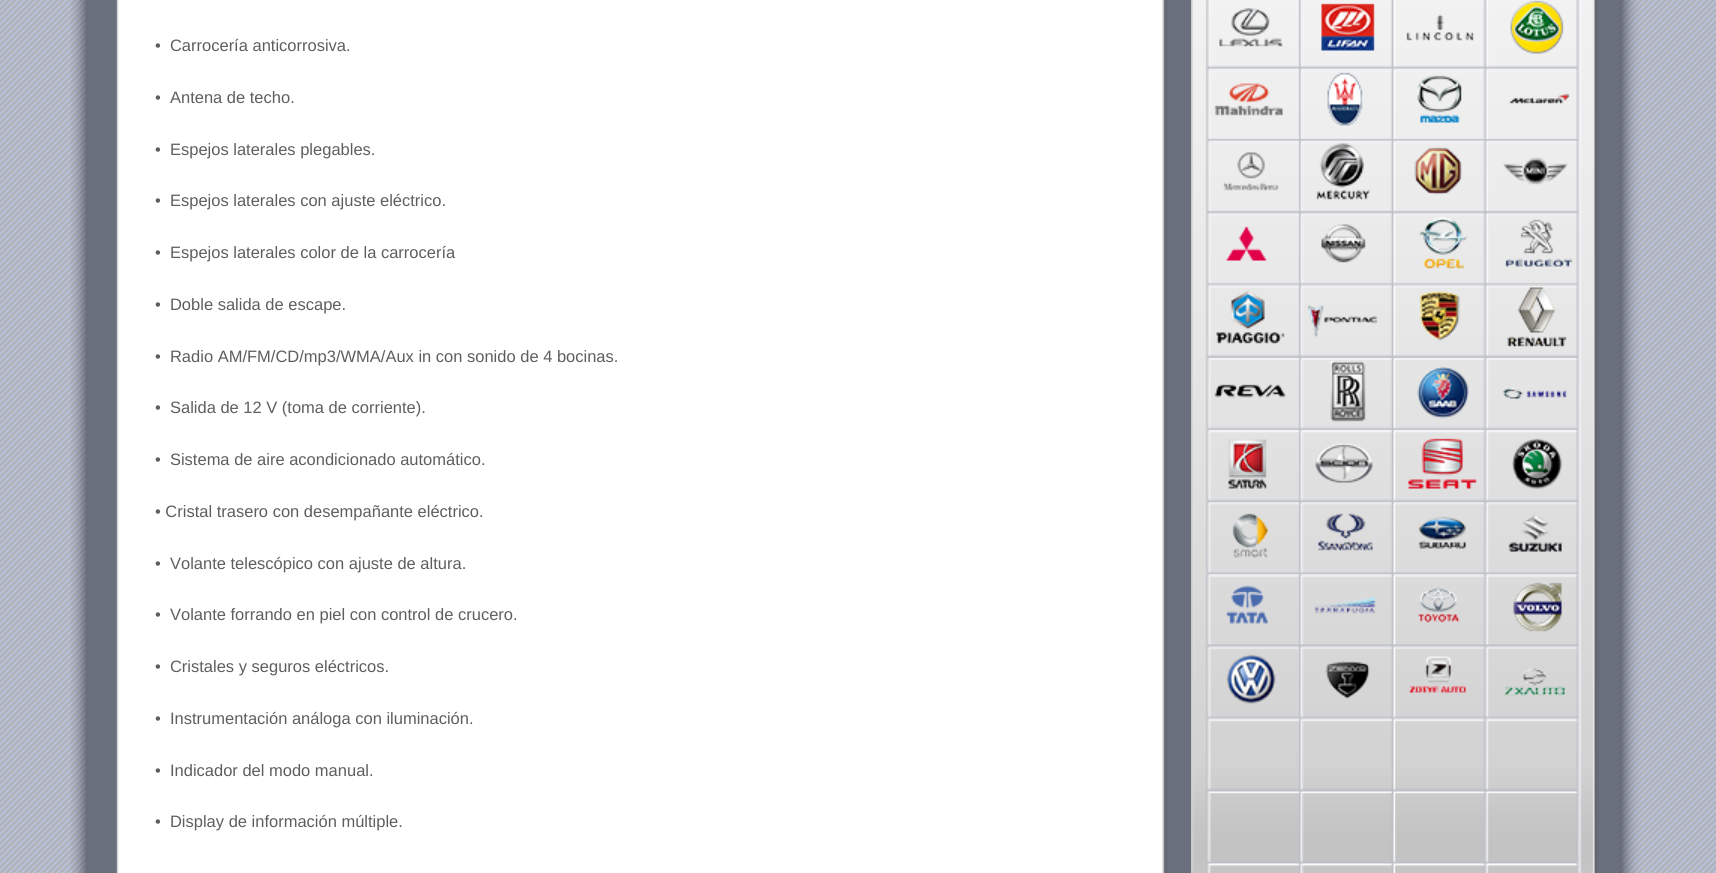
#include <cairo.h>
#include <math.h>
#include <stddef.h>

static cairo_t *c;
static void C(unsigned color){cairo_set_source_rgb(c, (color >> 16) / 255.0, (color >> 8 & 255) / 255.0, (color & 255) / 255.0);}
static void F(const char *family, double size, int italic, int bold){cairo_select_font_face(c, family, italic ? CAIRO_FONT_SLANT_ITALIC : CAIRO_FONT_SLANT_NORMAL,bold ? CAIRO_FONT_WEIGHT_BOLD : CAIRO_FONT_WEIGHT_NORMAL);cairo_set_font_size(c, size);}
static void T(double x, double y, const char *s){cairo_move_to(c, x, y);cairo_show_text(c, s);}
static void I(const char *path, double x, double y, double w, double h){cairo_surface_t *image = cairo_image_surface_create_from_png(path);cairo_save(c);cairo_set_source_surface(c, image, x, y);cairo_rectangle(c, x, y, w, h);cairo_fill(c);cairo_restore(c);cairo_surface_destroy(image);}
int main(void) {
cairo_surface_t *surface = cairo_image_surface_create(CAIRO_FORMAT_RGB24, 1716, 873);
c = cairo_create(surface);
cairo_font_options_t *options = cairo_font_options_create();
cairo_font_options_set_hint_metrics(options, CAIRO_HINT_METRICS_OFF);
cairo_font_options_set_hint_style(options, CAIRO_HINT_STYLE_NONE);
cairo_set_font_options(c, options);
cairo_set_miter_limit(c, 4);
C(0xffffff);
cairo_paint(c);
I("1.png",0,0,1716,873);
I("2.png",70,0,1571,873);
I("3.png",116,0,1052,873);
F("Liberation Sans",16.5,0,0);
C(0x5e5e5e);
T(155,51,"•  Carrocería anticorrosiva.");
T(155,103,"•  Antena de techo.");
T(155,155,"•  Espejos laterales plegables.");
T(155,206,"•  Espejos laterales con ajuste eléctrico.");
T(155,258,"•  Espejos laterales color de la carrocería");
T(155,310,"•  Doble salida de escape.");
T(155,362,"•  Radio AM/FM/CD/mp3/WMA/Aux in con sonido de 4 bocinas.");
T(155,413,"•  Salida de 12 V (toma de corriente).");
T(155,465,"•  Sistema de aire acondicionado automático.");
T(155,517,"• Cristal trasero con desempañante eléctrico.");
T(155,569,"•  Volante telescópico con ajuste de altura.");
T(155,620,"•  Volante forrando en piel con control de crucero.");
T(155,672,"•  Cristales y seguros eléctricos.");
T(155,724,"•  Instrumentación análoga con iluminación.");
T(155,776,"•  Indicador del modo manual.");
T(155,827,"•  Display de información múltiple.");
I("4.png",1191,0,408,873);
I("5.png",1219,8,64,39);
I("6.png",1321,3,54,48);
I("7.png",1406,14,68,27);
I("8.png",1510,0,54,54);
I("9.png",1214,83,69,33);
I("10.png",1327,72,36,54);
I("11.png",1417,75,45,48);
I("12.png",1509,93,61,11);
I("13.png",1223,152,56,39);
I("14.png",1316,143,54,57);
I("15.png",1414,147,48,48);
I("16.png",1503,157,65,28);
I("17.png",1225,226,42,35);
I("18.png",1321,224,45,39);
I("19.png",1419,217,49,52);
I("20.png",1505,219,68,48);
I("21.png",1216,290,69,54);
I("22.png",1307,305,71,33);
I("23.png",1420,291,40,50);
I("24.png",1507,287,60,60);
I("25.png",1214,384,72,14);
I("26.png",1330,361,36,61);
I("27.png",1417,366,52,53);
I("28.png",1502,388,65,11);
I("29.png",1228,439,39,50);
I("30.png",1315,443,58,40);
I("31.png",1408,438,69,51);
I("32.png",1511,438,51,51);
I("33.png",1232,513,36,45);
I("34.png",1318,513,55,38);
I("35.png",1418,516,48,33);
I("36.png",1508,514,54,38);
I("37.png",1226,585,42,39);
I("38.png",1314,596,62,18);
I("39.png",1417,587,43,36);
I("40.png",1513,582,49,50);
I("41.png",1226,654,50,50);
I("42.png",1325,661,45,38);
I("43.png",1409,656,57,37);
I("44.png",1504,668,61,28);
cairo_surface_write_to_png(surface, "o.png");
cairo_font_options_destroy(options);
cairo_destroy(c);
cairo_surface_destroy(surface);
return 0;
}
